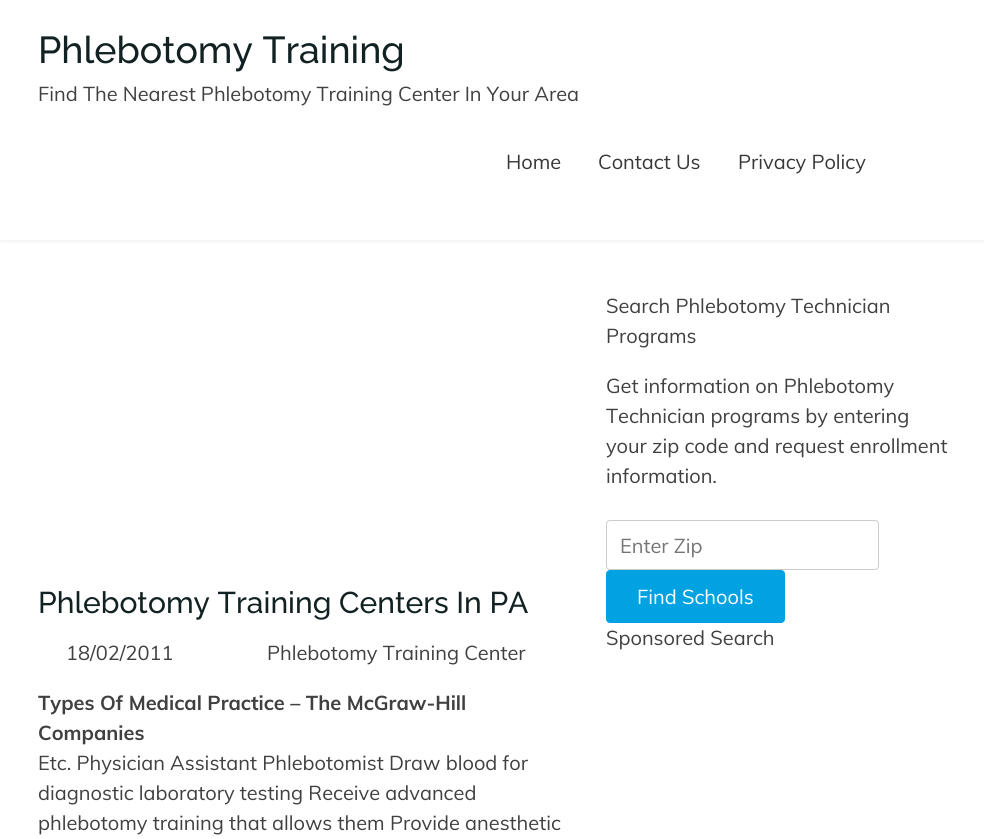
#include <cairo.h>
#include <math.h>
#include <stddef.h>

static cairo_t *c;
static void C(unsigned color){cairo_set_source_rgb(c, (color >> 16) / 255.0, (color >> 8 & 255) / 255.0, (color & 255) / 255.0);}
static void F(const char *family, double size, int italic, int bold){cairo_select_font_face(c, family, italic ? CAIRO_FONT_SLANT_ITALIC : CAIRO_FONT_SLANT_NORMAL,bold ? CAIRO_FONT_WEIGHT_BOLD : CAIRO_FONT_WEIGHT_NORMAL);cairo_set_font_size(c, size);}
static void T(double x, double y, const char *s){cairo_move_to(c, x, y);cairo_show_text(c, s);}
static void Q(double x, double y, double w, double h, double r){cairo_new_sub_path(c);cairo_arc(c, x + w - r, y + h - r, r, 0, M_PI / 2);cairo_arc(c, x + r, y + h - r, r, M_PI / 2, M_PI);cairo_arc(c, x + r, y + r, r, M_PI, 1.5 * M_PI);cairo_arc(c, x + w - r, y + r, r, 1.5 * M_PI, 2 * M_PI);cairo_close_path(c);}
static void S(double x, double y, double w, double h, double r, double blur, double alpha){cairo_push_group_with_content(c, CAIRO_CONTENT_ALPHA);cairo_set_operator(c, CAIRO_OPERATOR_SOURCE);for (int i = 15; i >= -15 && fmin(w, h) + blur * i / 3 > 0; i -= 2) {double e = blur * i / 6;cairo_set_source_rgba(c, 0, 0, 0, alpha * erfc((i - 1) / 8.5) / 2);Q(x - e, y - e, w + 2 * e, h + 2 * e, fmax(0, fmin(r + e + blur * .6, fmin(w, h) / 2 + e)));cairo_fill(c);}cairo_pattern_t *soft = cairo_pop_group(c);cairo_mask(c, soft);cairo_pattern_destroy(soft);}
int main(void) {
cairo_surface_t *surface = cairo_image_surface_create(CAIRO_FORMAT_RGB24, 984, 839);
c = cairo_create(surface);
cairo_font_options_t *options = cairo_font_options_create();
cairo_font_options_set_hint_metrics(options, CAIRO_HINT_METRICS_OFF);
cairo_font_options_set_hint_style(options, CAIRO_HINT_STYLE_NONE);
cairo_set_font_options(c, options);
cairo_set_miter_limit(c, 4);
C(0xffffff);
cairo_paint(c);
cairo_save(c);
cairo_rectangle(c,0,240,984,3);
cairo_clip(c);
C(0x000000);
S(0,0,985,240,0,3,.1);
cairo_restore(c);
F("Raleway Medium",37.5,0,0);
C(0x122223);
T(38,63,"Phlebotomy Training");
F("Muli",20,0,0);
C(0x404040);
T(38,101,"Find The Nearest Phlebotomy Training Center In Your Area");
C(0x383737);
T(506,169,"Home");
T(598,169,"Contact Us");
T(738,169,"Privacy Policy");
C(0x404040);
T(606,313,"Search Phlebotomy Technician");
T(606,343,"Programs");
T(606,393,"Get information on Phlebotomy");
T(606,423,"Technician programs by entering");
T(606,453,"your zip code and request enrollment");
T(606,483,"information.");
Q(606.5,520.5,272,49,3.5);
C(0xcccccc);
cairo_set_line_width(c,1);
cairo_stroke(c);
C(0x757575);
T(620,553,"Enter Zip");
C(0x00a2e1);
Q(606.5,570.5,178,52,3.5);
cairo_fill_preserve(c);
cairo_stroke(c);
C(0xffffff);
T(637,604,"Find Schools");
C(0x404040);
T(606,645,"Sponsored Search");
F("Raleway Medium",30,0,0);
C(0x122223);
T(38,613,"Phlebotomy Training Centers In PA");
F("Muli",20,0,0);
C(0x404040);
T(66,660,"18/02/2011");
T(267,660,"Phlebotomy Training Center");
F("Muli",20,0,1);
T(38,710,"Types Of Medical Practice – The McGraw-Hill");
T(38,740,"Companies");
F("Muli",20,0,0);
T(38,770,"Etc. Physician Assistant Phlebotomist Draw blood for");
T(38,800,"diagnostic laboratory testing Receive advanced");
T(38,830,"phlebotomy training that allows them Provide anesthetic");
cairo_surface_write_to_png(surface, "o.png");
cairo_font_options_destroy(options);
cairo_destroy(c);
cairo_surface_destroy(surface);
return 0;
}
